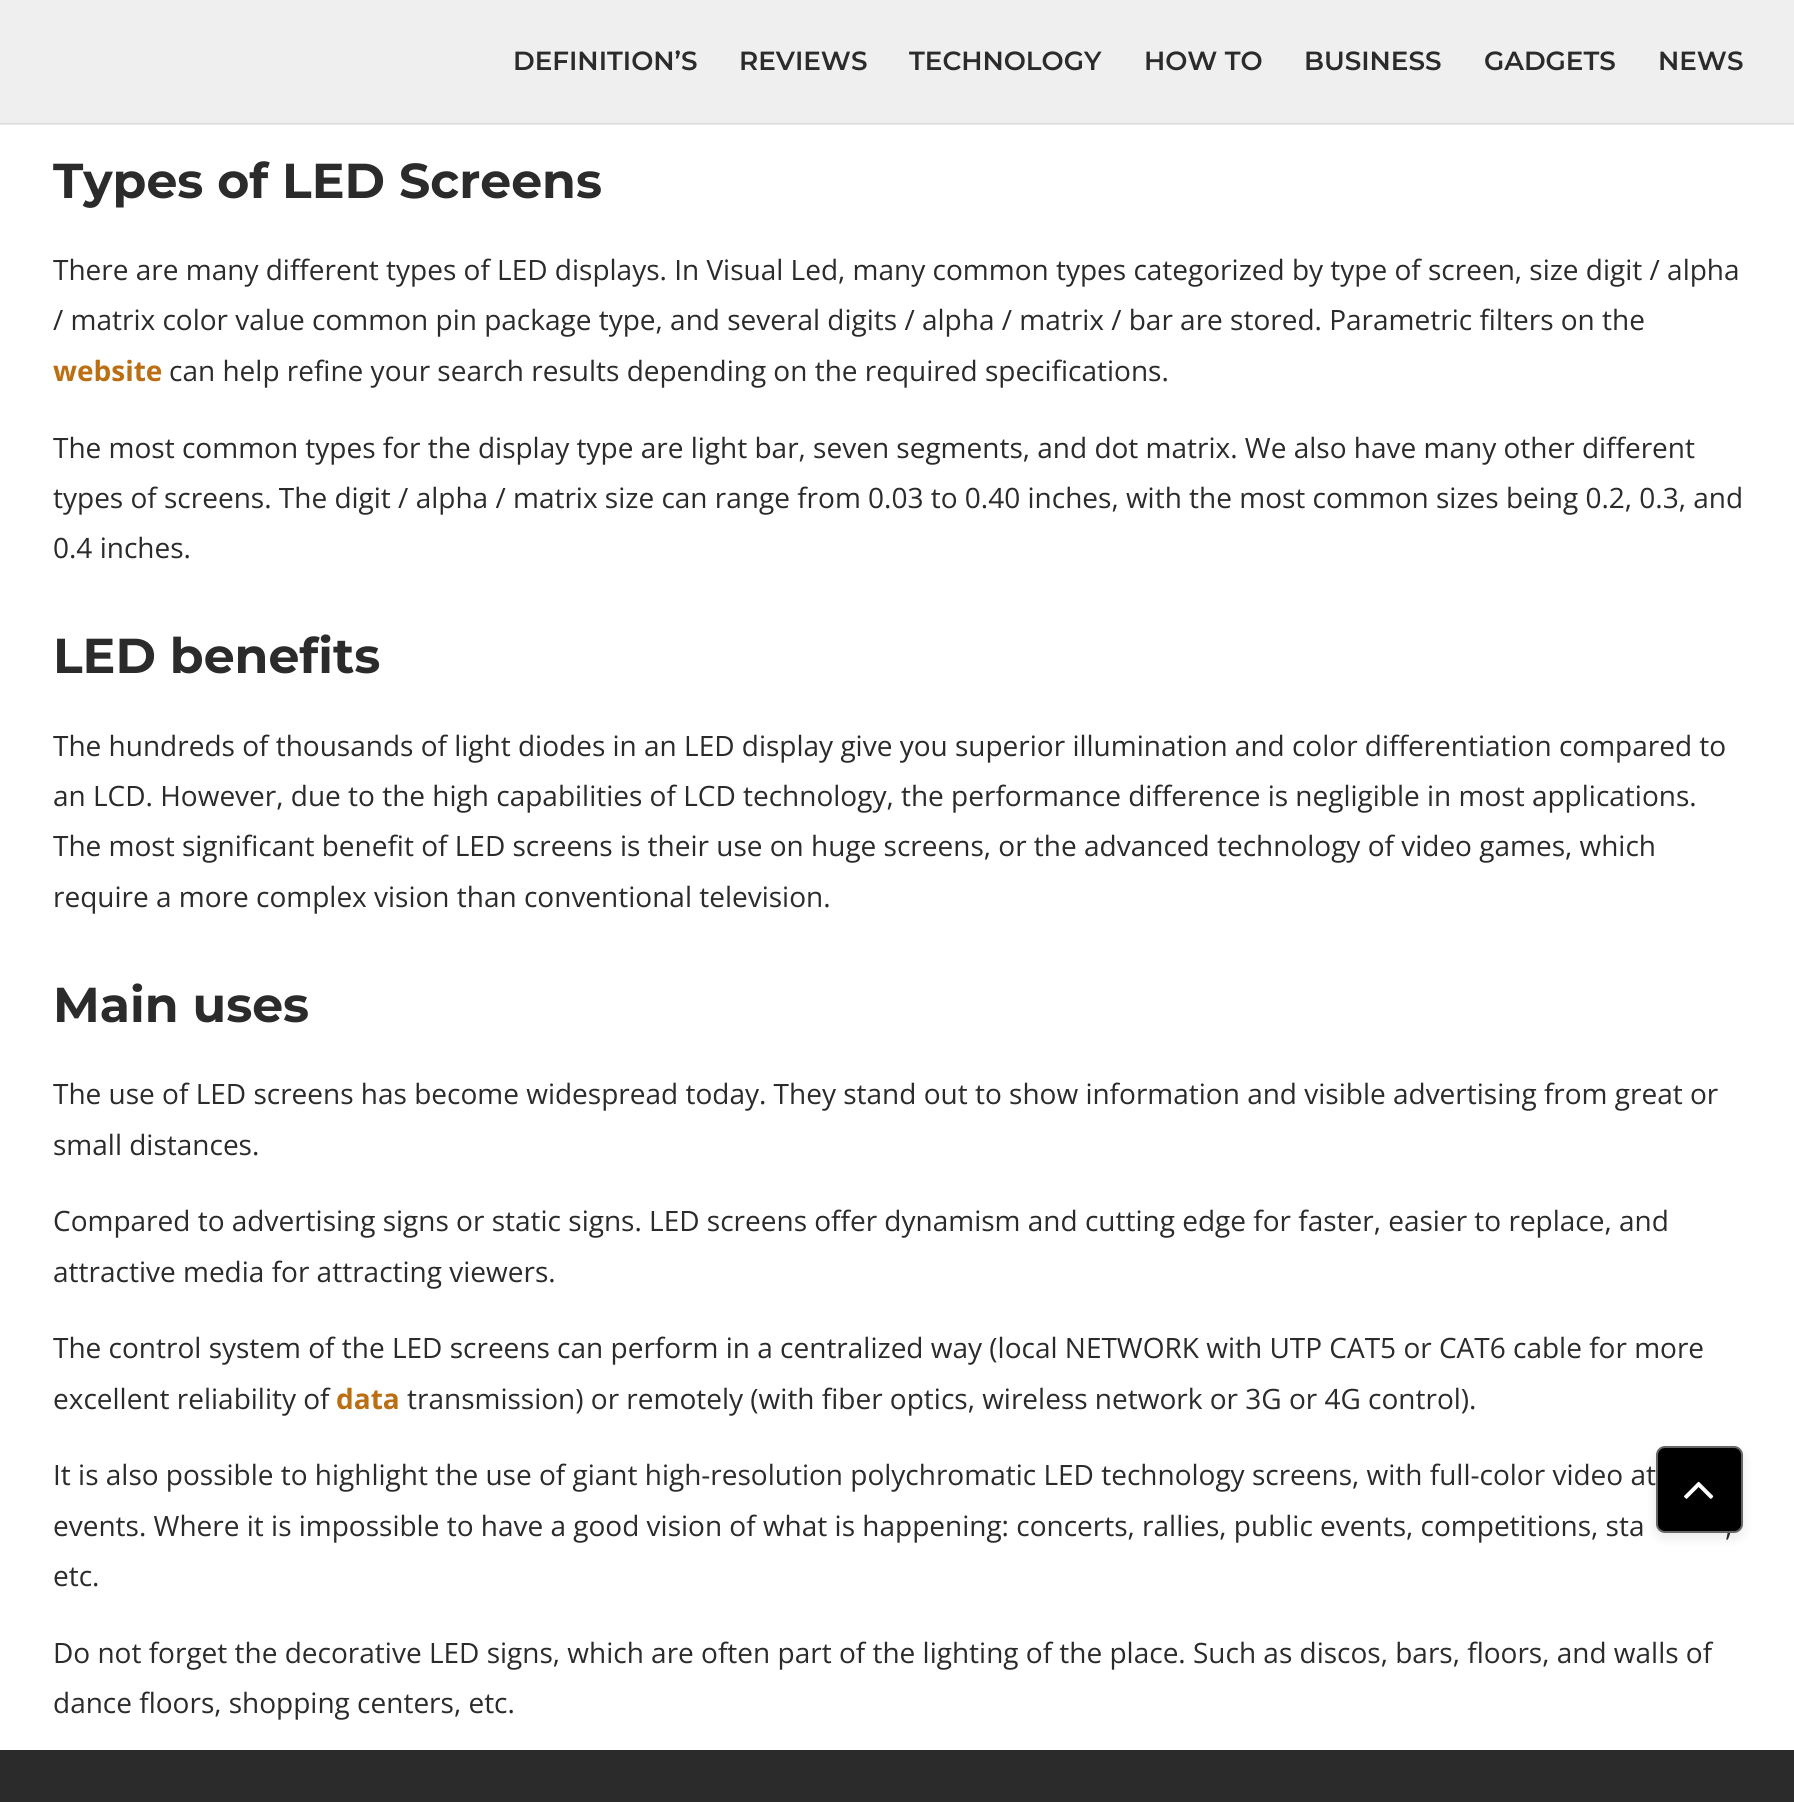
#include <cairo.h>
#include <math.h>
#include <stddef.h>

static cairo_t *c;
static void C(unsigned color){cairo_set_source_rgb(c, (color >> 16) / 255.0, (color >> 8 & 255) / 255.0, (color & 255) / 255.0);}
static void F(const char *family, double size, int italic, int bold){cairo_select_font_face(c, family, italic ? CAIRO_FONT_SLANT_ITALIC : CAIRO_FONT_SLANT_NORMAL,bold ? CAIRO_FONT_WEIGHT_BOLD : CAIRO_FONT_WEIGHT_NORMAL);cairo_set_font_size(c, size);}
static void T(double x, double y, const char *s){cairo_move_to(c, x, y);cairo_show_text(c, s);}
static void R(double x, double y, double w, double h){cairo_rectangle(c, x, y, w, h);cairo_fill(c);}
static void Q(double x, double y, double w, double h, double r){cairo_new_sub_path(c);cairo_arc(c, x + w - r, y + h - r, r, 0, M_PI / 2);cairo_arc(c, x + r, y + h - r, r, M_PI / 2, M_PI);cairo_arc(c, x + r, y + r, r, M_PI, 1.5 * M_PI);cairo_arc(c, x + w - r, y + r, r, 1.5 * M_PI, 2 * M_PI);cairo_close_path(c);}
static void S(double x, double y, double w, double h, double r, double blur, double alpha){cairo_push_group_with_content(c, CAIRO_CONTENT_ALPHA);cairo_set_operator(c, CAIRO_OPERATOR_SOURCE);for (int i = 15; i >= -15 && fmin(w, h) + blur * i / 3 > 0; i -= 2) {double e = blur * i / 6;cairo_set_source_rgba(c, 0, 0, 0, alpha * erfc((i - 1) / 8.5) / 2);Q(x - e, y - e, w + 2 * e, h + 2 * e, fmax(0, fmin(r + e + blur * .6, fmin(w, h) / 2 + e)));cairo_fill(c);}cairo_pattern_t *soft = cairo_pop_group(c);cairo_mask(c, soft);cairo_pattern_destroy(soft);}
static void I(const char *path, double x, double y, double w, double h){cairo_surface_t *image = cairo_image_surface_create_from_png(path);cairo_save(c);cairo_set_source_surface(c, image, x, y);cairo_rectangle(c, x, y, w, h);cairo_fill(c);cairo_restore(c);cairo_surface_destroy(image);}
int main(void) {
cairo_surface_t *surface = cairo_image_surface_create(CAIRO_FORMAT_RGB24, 1794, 1802);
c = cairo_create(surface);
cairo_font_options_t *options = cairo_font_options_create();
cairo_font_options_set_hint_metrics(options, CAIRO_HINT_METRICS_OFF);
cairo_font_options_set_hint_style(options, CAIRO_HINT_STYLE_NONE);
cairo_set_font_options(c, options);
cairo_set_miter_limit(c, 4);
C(0xffffff);
cairo_paint(c);
C(0xebebeb);
R(0,124,1794,1);
C(0xefefef);
R(0,0,1794,123);
C(0xdcdcdc);
R(0,123,1794,1);
F("Montserrat SemiBold",26.25,0,0);
C(0x2b2b2b);
T(513,70,"DEFINITION’S");
T(739,70,"REVIEWS");
T(909,70,"TECHNOLOGY");
T(1144,70,"HOW TO");
T(1304,70,"BUSINESS");
T(1484,70,"GADGETS");
T(1658,70,"NEWS");
F("Montserrat",49,0,1);
T(53,198,"Types of LED Screens");
F("Open Sans",28,0,0);
T(53,280,"There are many different types of LED displays. In Visual Led, many common types categorized by type of screen, size digit / alpha");
T(53,330,"/ matrix color value common pin package type, and several digits / alpha / matrix / bar are stored. Parametric filters on the");
F("Open Sans",28,0,1);
C(0xbc6e13);
T(53,381,"website");
F("Open Sans",28,0,0);
C(0x2b2b2b);
T(169,381,"can help refine your search results depending on the required specifications.");
T(53,458,"The most common types for the display type are light bar, seven segments, and dot matrix. We also have many other different");
T(53,508,"types of screens. The digit / alpha / matrix size can range from 0.03 to 0.40 inches, with the most common sizes being 0.2, 0.3, and");
T(53,558,"0.4 inches.");
F("Montserrat",49,0,1);
T(53,673,"LED benefits");
F("Open Sans",28,0,0);
T(53,756,"The hundreds of thousands of light diodes in an LED display give you superior illumination and color differentiation compared to");
T(53,806,"an LCD. However, due to the high capabilities of LCD technology, the performance difference is negligible in most applications.");
T(53,856,"The most significant benefit of LED screens is their use on huge screens, or the advanced technology of video games, which");
T(53,907,"require a more complex vision than conventional television.");
F("Montserrat",49,0,1);
T(53,1022,"Main uses");
F("Open Sans",28,0,0);
T(53,1104,"The use of LED screens has become widespread today. They stand out to show information and visible advertising from great or");
T(53,1155,"small distances.");
T(53,1231,"Compared to advertising signs or static signs. LED screens offer dynamism and cutting edge for faster, easier to replace, and");
T(53,1282,"attractive media for attracting viewers.");
T(53,1358,"The control system of the LED screens can perform in a centralized way (local NETWORK with UTP CAT5 or CAT6 cable for more");
T(53,1409,"excellent reliability of");
F("Open Sans",28,0,1);
C(0xbc6e13);
T(336,1409,"data");
F("Open Sans",28,0,0);
C(0x2b2b2b);
T(407,1409,"transmission) or remotely (with fiber optics, wireless network or 3G or 4G control).");
T(53,1485,"It is also possible to highlight the use of giant high-resolution polychromatic LED technology screens, with full-color video at");
T(53,1536,"events. Where it is impossible to have a good vision of what is happening: concerts, rallies, public events, competitions, sta");
T(1725,1536,",");
T(53,1586,"etc.");
T(53,1663,"Do not forget the decorative LED signs, which are often part of the lighting of the place. Such as discos, bars, floors, and walls of");
T(53,1713,"dance floors, shopping centers, etc.");
R(0,1750,1794,52);
C(0x000000);
S(1654,1449,91,91,11,5,.07);
C(0x000000);
Q(1657,1447,85,85,8);
cairo_fill_preserve(c);
C(0x666666);
cairo_stroke(c);
I("1.png",1684,1481,30,18);
cairo_surface_write_to_png(surface, "o.png");
cairo_font_options_destroy(options);
cairo_destroy(c);
cairo_surface_destroy(surface);
return 0;
}
